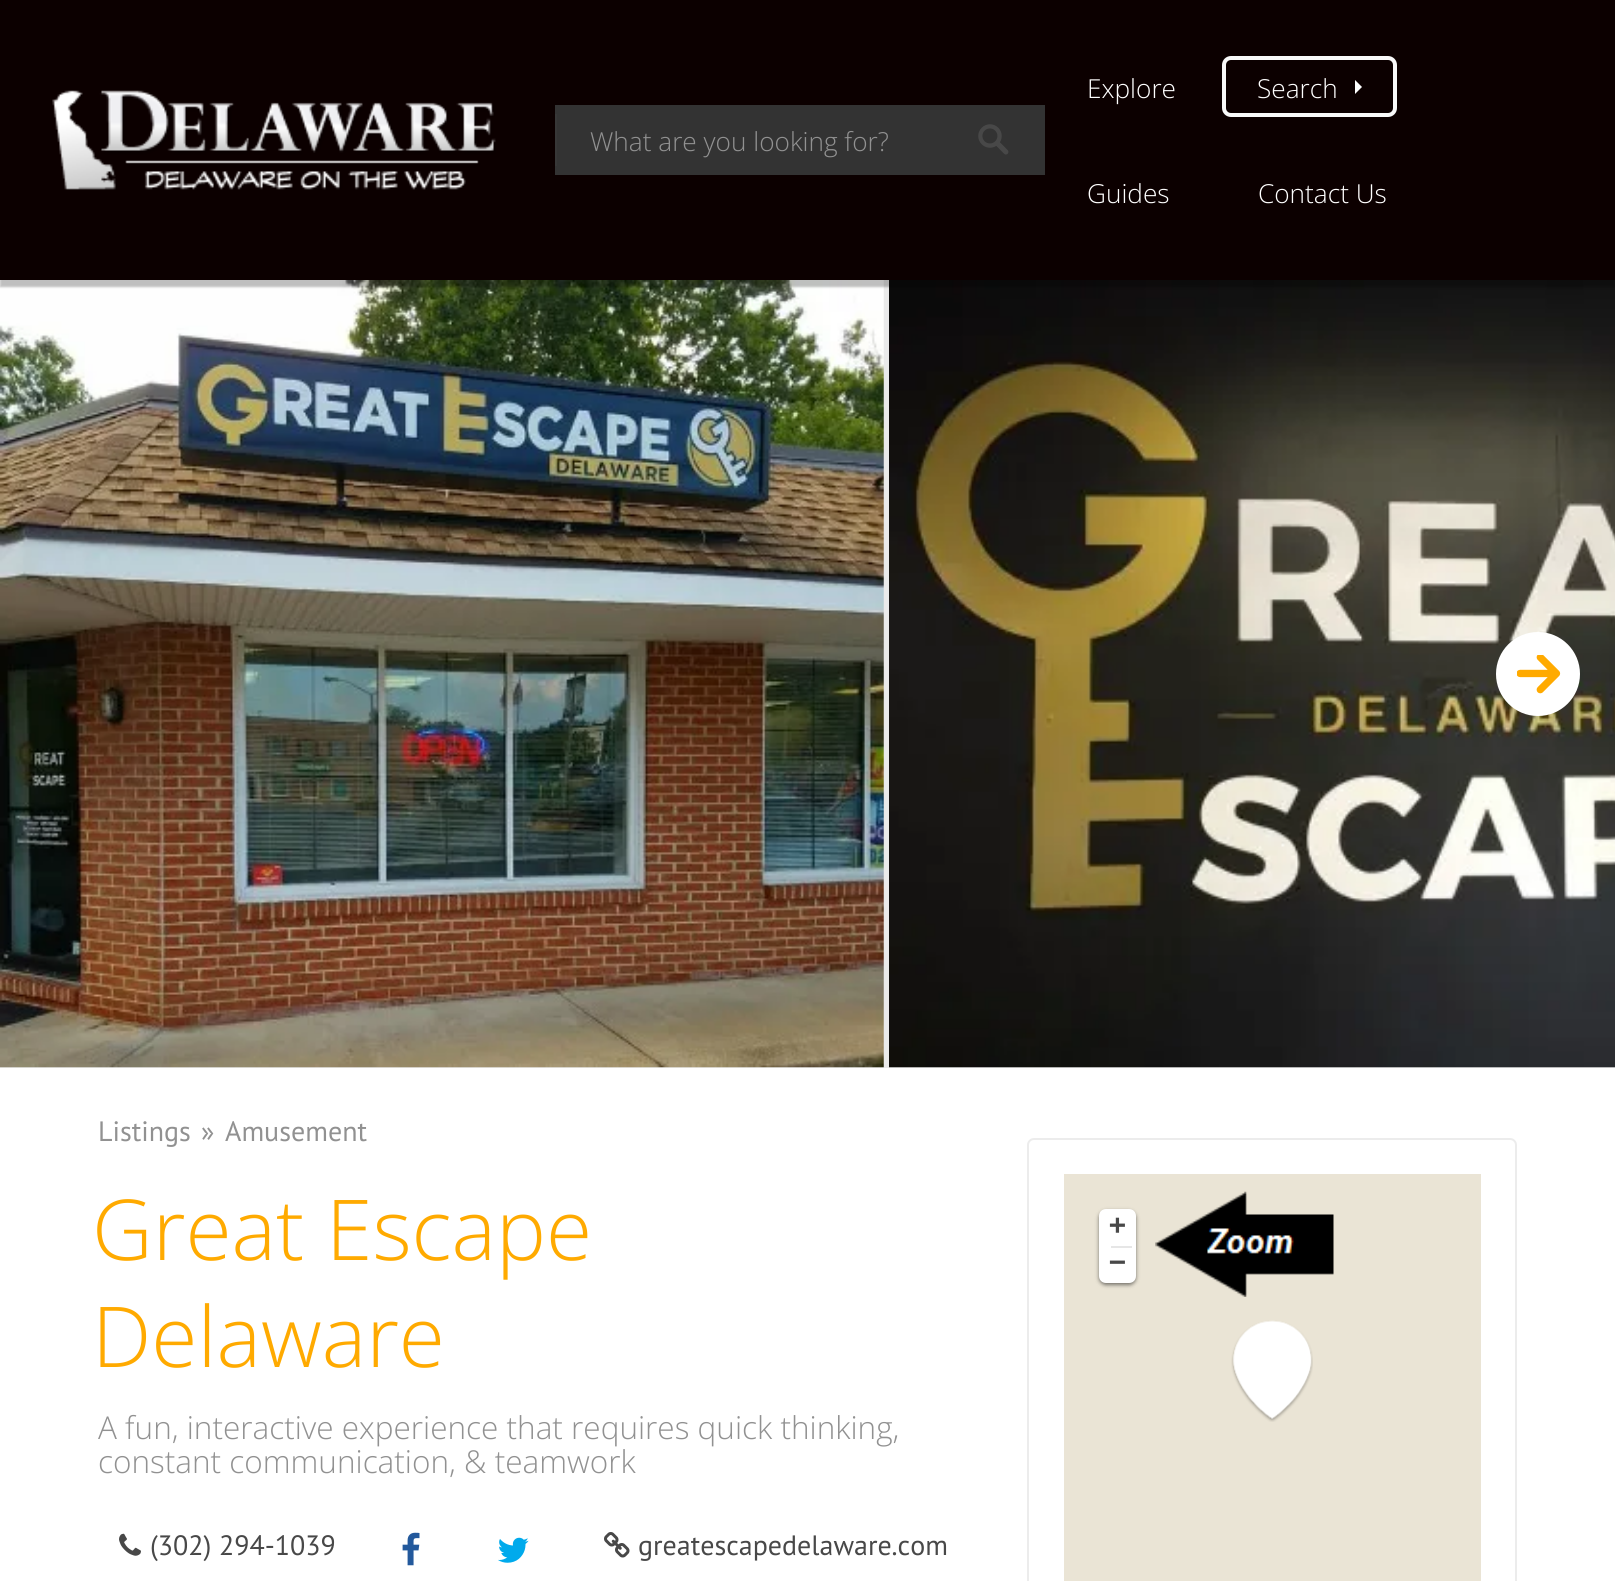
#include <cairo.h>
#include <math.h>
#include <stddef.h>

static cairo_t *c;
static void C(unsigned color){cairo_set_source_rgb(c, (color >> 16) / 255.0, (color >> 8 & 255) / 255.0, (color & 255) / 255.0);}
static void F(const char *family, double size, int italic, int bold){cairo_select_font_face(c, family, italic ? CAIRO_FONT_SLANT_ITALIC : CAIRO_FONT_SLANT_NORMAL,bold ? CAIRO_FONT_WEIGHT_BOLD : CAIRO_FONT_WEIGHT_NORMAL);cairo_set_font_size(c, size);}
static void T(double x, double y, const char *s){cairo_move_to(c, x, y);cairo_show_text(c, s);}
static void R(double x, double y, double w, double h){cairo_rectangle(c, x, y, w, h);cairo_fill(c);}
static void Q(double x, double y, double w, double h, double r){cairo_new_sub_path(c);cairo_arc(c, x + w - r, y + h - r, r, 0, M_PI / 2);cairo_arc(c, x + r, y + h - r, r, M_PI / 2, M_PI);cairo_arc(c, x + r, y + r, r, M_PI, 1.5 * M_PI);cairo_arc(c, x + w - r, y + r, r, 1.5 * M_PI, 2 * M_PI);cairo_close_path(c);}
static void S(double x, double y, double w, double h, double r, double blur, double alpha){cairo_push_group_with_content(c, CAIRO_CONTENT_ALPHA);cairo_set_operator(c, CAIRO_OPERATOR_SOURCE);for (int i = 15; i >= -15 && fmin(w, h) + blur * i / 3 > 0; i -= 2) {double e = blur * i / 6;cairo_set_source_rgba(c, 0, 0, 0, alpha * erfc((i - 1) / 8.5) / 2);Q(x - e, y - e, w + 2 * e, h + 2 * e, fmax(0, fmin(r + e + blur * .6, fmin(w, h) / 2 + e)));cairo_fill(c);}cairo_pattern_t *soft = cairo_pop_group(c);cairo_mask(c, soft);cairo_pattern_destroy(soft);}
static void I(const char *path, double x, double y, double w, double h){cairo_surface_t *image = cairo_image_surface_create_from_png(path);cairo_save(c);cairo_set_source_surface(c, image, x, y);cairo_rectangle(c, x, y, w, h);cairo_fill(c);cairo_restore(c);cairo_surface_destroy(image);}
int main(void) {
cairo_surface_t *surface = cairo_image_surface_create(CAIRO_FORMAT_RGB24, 1615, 1581);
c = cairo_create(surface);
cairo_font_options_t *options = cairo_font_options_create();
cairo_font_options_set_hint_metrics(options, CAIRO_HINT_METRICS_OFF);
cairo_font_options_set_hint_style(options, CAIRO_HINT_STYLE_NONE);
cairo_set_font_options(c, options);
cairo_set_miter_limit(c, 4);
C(0xeaeaea);
cairo_paint(c);
I("3.png",0,280,884,788);
I("4.png",889,280,726,788);
C(0x000000);
S(0,7,1615,280,0,1,.25);
C(0x0c0000);
R(0,0,1615,280);
I("1.png",52,90,444,100);
C(0x333333);
R(555,105,490,70);
C(0x373737);
R(555,114,2,52);
F("Open Sans Light",26.2,0,0);
C(0x919191);
T(590,151,"What are you looking for?");
I("2.png",978,124,31,31);
C(0xffffff);
T(1087,98,"Explore");
Q(1224,58,171,57,7);
C(0xf9f9f9);
cairo_set_line_width(c,4);
cairo_stroke(c);
C(0xffffff);
T(1257,98,"Search");
cairo_new_path(c);
cairo_move_to(c,1355,94);
cairo_line_to(c,1355,80);
cairo_line_to(c,1362,87);
cairo_close_path(c);
cairo_fill(c);
T(1087,203,"Guides");
T(1258,203,"Contact Us");
cairo_new_path(c);
cairo_arc(c,1538,674,42,0,2 * M_PI);
cairo_fill(c);
I("5.png",1517,655,44,39);
R(0,1068,1615,513);
F("PT Sans",28,0,0);
C(0x919191);
T(98,1141,"Listings");
T(201,1141,"»");
T(225,1141,"Amusement");
F("Open Sans Light",84,0,0);
C(0xffaa00);
T(92,1260,"Great Escape");
T(92,1367,"Delaware");
F("Open Sans Light",31.5,0,0);
C(0x919191);
T(98,1439,"A fun, interactive experience that requires quick thinking,");
T(98,1473,"constant communication, & teamwork");
I("6.png",119,1533,22,23);
F("PT Sans",28,0,0);
C(0x484848);
T(150,1555,"(302) 294-1039");
I("7.png",402,1532,18,34);
I("8.png",498,1537,31,26);
I("9.png",604,1532,26,26);
T(638,1555,"greatescapedelaware.com");
Q(1028,1139,488,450,6);
C(0xececec);
cairo_set_line_width(c,2);
cairo_stroke(c);
C(0xeae4d5);
R(1064,1174,417,407);
C(0x000000);
S(1099,1211,37,74,7,2,.5);
C(0xffffff);
cairo_new_path(c);
cairo_move_to(c,1106,1209);
cairo_line_to(c,1129,1209);
cairo_curve_to(c,1133,1209,1136,1212,1136,1216);
cairo_line_to(c,1136,1246);
cairo_line_to(c,1099,1246);
cairo_line_to(c,1099,1216);
cairo_curve_to(c,1099,1212,1102,1209,1106,1209);
cairo_close_path(c);
cairo_fill(c);
F("DejaVu Sans Mono",28,0,1);
C(0x484848);
T(1109,1234,"+");
C(0xffffff);
cairo_new_path(c);
cairo_move_to(c,1099,1246);
cairo_line_to(c,1136,1246);
cairo_line_to(c,1136,1276);
cairo_curve_to(c,1136,1280,1133,1283,1129,1283);
cairo_line_to(c,1106,1283);
cairo_curve_to(c,1102,1283,1099,1280,1099,1276);
cairo_close_path(c);
cairo_fill(c);
C(0xe6e6e6);
R(1111,1246,21,2);
C(0x484848);
T(1109,1271,"−");
I("10.png",1155,1191,179,106);
I("11.png",1231,1320,82,102);
cairo_surface_write_to_png(surface, "o.png");
cairo_font_options_destroy(options);
cairo_destroy(c);
cairo_surface_destroy(surface);
return 0;
}
